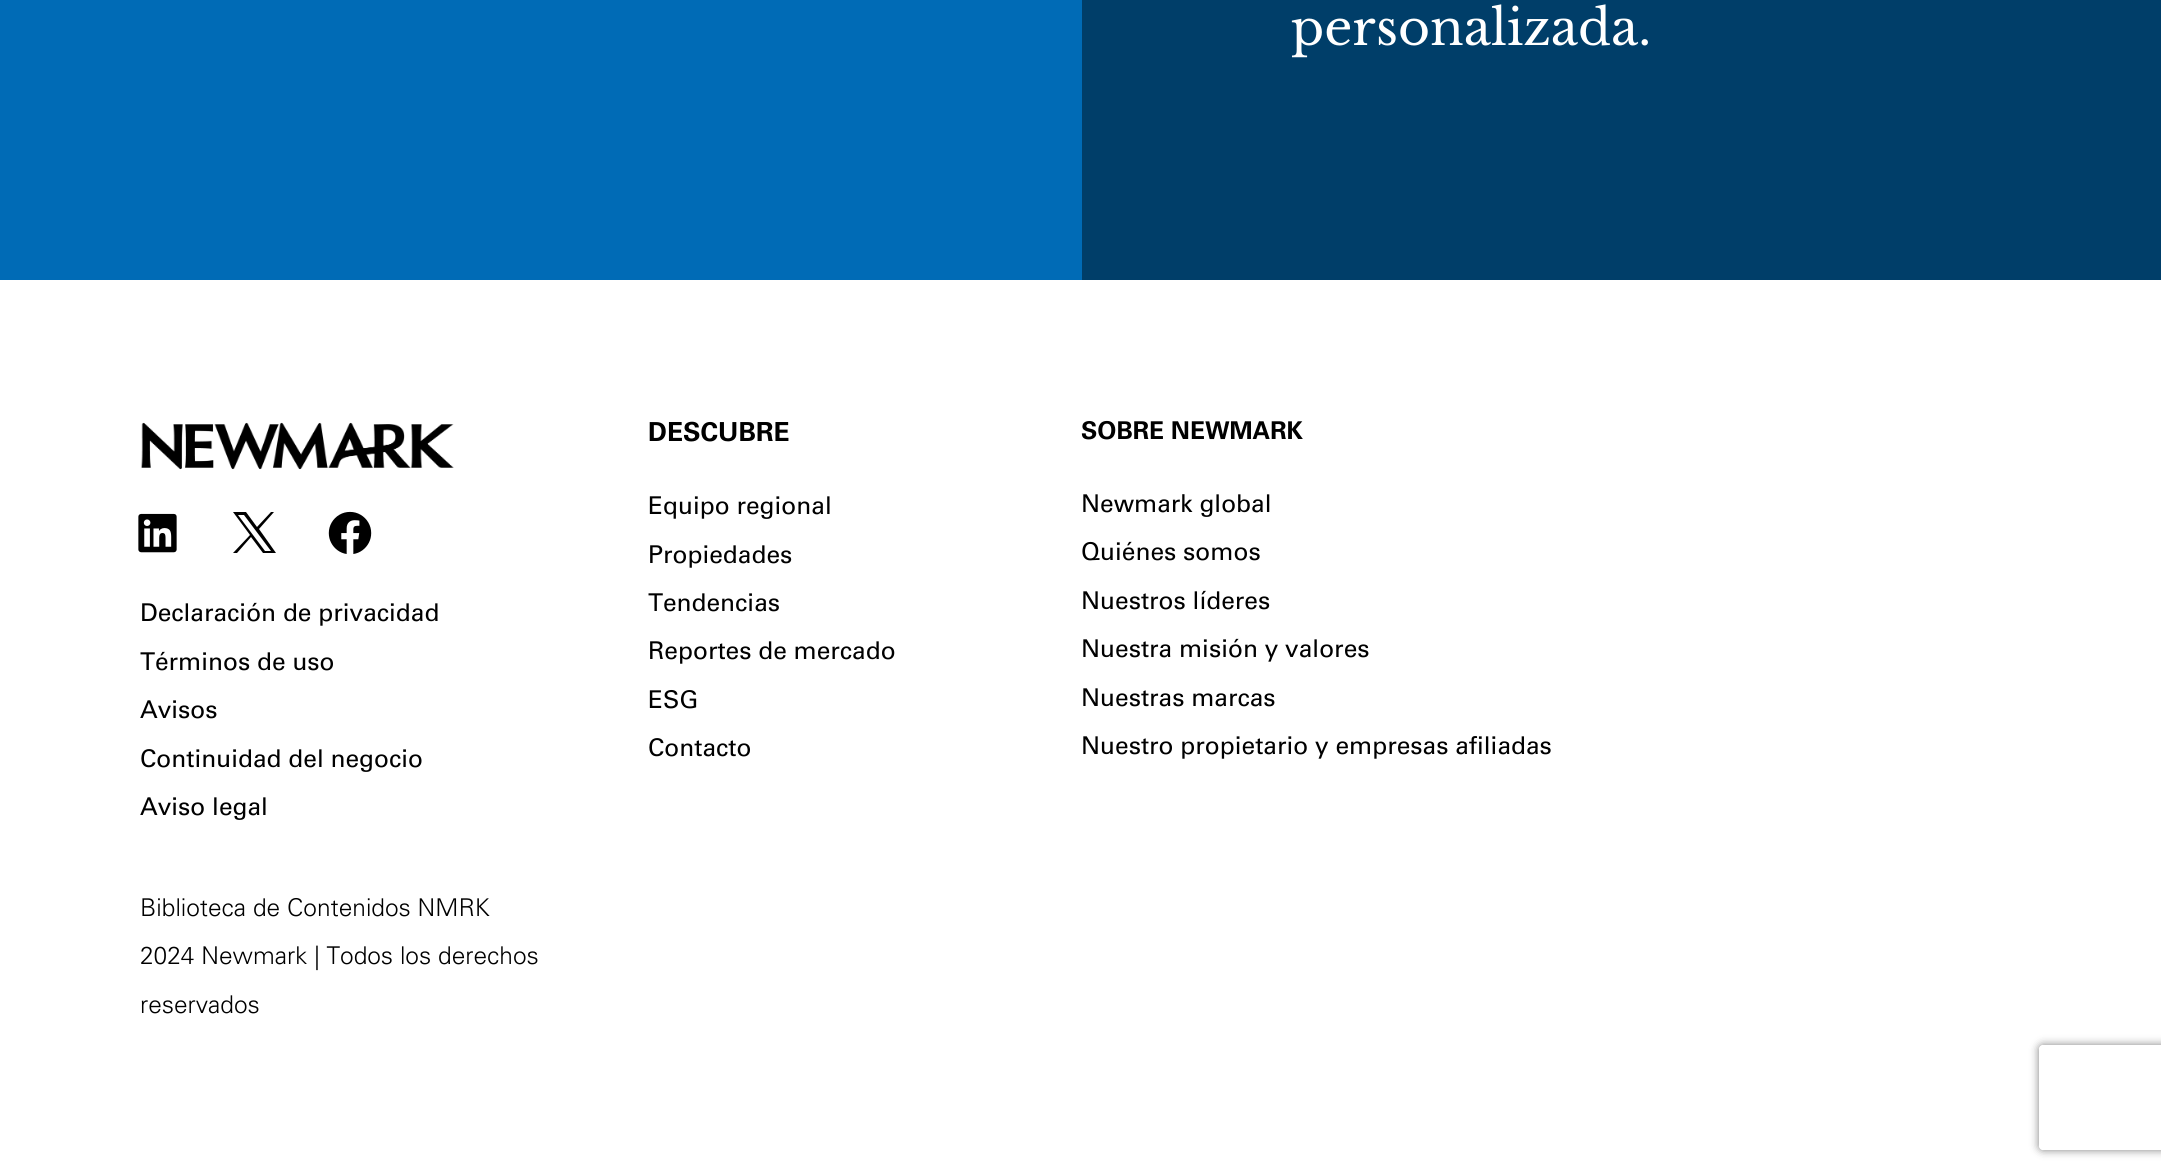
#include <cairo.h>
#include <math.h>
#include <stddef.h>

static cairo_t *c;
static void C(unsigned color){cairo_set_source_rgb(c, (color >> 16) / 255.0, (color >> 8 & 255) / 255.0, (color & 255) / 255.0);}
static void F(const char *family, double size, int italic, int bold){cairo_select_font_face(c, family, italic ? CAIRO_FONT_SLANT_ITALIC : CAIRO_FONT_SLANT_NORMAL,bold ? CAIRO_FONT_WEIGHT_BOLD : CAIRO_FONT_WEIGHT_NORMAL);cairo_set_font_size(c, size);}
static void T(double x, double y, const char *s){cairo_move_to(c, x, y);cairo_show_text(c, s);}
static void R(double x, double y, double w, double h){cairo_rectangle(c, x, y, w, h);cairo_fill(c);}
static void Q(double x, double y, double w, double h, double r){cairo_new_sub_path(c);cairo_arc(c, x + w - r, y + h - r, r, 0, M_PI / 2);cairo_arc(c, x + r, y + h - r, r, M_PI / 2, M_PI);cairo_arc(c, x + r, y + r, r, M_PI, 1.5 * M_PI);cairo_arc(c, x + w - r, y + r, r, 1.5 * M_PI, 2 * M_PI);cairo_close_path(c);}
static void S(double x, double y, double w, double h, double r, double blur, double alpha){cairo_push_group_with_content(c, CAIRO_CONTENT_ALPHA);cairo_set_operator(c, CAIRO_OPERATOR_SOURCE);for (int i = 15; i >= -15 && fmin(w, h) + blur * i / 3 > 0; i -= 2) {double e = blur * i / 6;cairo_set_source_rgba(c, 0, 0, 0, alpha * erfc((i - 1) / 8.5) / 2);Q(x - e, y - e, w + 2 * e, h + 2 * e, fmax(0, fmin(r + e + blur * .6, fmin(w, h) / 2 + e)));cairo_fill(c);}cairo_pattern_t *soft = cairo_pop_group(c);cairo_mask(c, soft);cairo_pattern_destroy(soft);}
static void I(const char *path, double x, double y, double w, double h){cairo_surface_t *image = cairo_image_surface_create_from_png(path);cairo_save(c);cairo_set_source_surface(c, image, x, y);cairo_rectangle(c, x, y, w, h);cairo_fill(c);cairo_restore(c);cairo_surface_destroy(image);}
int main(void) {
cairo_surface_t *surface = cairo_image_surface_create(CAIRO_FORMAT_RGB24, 2161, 1173);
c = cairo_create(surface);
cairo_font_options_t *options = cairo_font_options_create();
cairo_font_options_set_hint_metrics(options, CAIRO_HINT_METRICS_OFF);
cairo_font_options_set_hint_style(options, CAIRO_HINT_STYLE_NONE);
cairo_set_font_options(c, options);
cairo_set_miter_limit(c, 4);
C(0xffffff);
cairo_paint(c);
C(0x006bb6);
R(0,0,1082,280);
C(0x003e69);
R(1082,0,1079,280);
F("Libre Baskerville",49,0,0);
C(0xffffff);
T(1291,45,"personalizada.");
I("1.png",141,422,313,48);
I("2.png",138,513,39,40);
C(0x000000);
cairo_new_path(c);
cairo_move_to(c,233,512);
cairo_line_to(c,250,535);
cairo_line_to(c,233,553);
cairo_line_to(c,237,553);
cairo_line_to(c,251,537);
cairo_line_to(c,263,553);
cairo_line_to(c,276,553);
cairo_line_to(c,259,529);
cairo_line_to(c,274,512);
cairo_line_to(c,271,512);
cairo_line_to(c,257,527);
cairo_line_to(c,246,512);
cairo_close_path(c);
cairo_move_to(c,238,515);
cairo_line_to(c,244,515);
cairo_line_to(c,271,551);
cairo_line_to(c,265,551);
cairo_close_path(c);
cairo_fill(c);
I("3.png",328,511,44,43);
F("Univers",24.5,0,0);
T(140,621,"Declaración de privacidad");
T(140,670,"Términos de uso");
T(140,718,"Avisos");
T(140,767,"Continuidad del negocio");
T(140,815,"Aviso legal");
F("Univers Light",24.5,0,0);
T(140,916,"Biblioteca de Contenidos NMRK");
T(140,964,"2024 Newmark | Todos los derechos");
T(140,1013,"reservados");
F("Univers",26.25,0,1);
T(648,441,"DESCUBRE");
F("Univers",24.5,0,0);
T(648,514,"Equipo regional");
T(648,563,"Propiedades");
T(648,611,"Tendencias");
T(648,659,"Reportes de mercado");
T(648,708,"ESG");
T(648,756,"Contacto");
F("Univers",24.5,0,1);
T(1081,439,"SOBRE NEWMARK");
F("Univers",24.5,0,0);
T(1081,512,"Newmark global");
T(1081,560,"Quiénes somos");
T(1081,609,"Nuestros líderes");
T(1081,657,"Nuestra misión y valores");
T(1081,706,"Nuestras marcas");
T(1081,754,"Nuestro propietario y empresas afiliadas");
cairo_save(c);
cairo_set_fill_rule(c,CAIRO_FILL_RULE_EVEN_ODD);
cairo_new_path(c);
cairo_move_to(c,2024,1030);
cairo_line_to(c,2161,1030);
cairo_line_to(c,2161,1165);
cairo_line_to(c,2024,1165);
cairo_close_path(c);
cairo_move_to(c,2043,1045);
cairo_line_to(c,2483,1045);
cairo_curve_to(c,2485,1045,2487,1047,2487,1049);
cairo_line_to(c,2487,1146);
cairo_curve_to(c,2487,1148,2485,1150,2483,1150);
cairo_line_to(c,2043,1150);
cairo_curve_to(c,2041,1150,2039,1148,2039,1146);
cairo_line_to(c,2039,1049);
cairo_curve_to(c,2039,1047,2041,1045,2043,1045);
cairo_close_path(c);
cairo_clip(c);
C(0x808080);
S(2039,1045,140,105,4,4.5,1);
cairo_restore(c);
cairo_surface_write_to_png(surface, "o.png");
cairo_font_options_destroy(options);
cairo_destroy(c);
cairo_surface_destroy(surface);
return 0;
}
